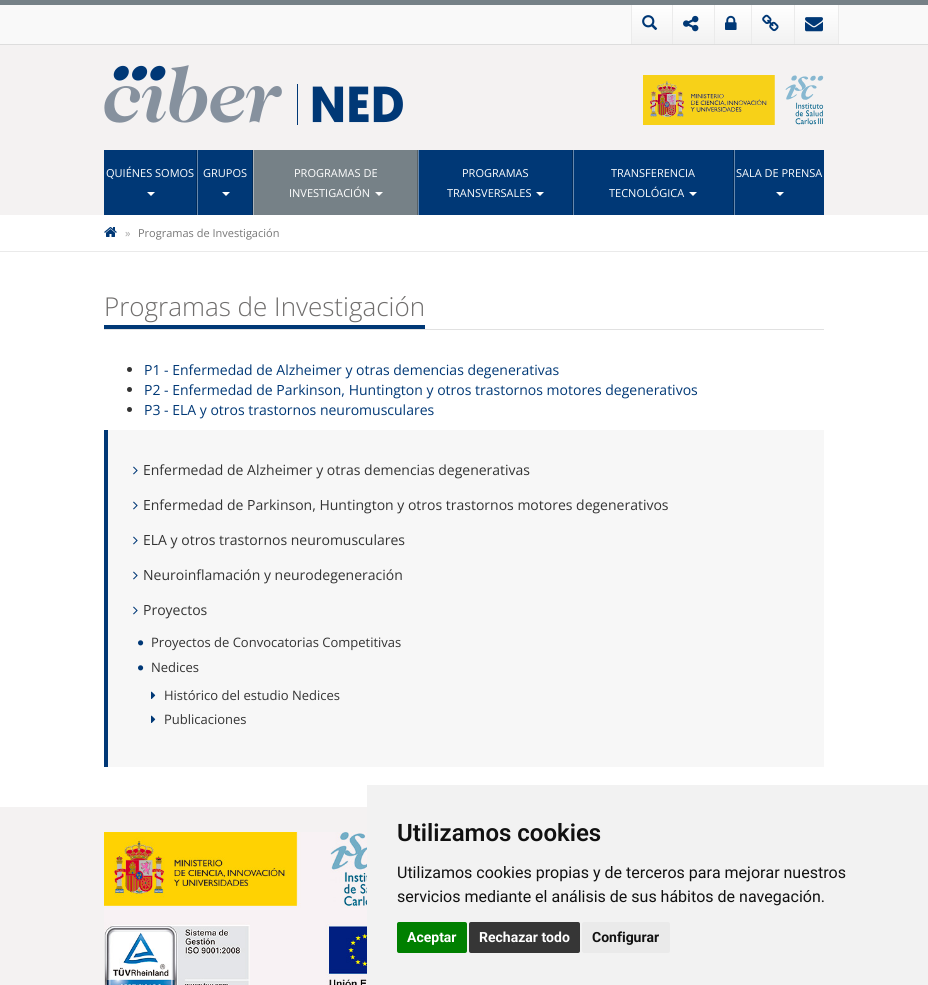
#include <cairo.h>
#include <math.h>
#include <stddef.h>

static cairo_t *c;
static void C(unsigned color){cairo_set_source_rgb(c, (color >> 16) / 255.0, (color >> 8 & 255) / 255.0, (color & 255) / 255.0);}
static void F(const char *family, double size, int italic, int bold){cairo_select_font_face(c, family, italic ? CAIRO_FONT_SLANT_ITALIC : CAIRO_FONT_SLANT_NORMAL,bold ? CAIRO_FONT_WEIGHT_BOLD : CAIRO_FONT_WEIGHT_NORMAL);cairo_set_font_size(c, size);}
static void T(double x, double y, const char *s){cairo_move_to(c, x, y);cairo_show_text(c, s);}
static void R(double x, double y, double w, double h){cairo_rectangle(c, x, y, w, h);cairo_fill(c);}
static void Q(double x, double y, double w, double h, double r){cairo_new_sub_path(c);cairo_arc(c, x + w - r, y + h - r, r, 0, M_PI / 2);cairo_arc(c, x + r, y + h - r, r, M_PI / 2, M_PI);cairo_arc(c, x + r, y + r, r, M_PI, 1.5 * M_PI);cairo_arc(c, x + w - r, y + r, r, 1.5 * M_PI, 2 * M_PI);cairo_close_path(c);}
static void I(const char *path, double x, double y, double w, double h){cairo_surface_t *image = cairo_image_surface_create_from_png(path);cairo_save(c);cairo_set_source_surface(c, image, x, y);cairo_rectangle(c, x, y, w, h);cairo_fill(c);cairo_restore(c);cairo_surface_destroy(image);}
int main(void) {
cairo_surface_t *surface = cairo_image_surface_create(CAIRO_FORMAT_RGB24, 928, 985);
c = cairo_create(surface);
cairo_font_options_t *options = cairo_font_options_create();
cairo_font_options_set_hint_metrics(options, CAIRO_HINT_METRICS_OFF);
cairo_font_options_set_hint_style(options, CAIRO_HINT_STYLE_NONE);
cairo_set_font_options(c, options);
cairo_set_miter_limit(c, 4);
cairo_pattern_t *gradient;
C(0xffffff);
cairo_paint(c);
C(0xf9f9f9);
R(0,5,928,39);
C(0x768187);
R(0,0,928,5);
C(0xdddddd);
R(0,44,928,1);
gradient = cairo_pattern_create_linear(652,5,652,44);
cairo_pattern_add_color_stop_rgba(gradient,0,1,1,1,1);
cairo_pattern_add_color_stop_rgba(gradient,1,0.949,0.949,0.949,1);
cairo_set_source(c,gradient);
cairo_pattern_destroy(gradient);
R(632,5,40,39);
C(0xebebeb);
R(672,5,1,39);
R(631,5,1,39);
I("1.png",642,15,16,15);
gradient = cairo_pattern_create_linear(694,5,694,44);
cairo_pattern_add_color_stop_rgba(gradient,0,1,1,1,1);
cairo_pattern_add_color_stop_rgba(gradient,1,0.949,0.949,0.949,1);
cairo_set_source(c,gradient);
cairo_pattern_destroy(gradient);
R(673,5,41,39);
C(0xebebeb);
R(714,5,1,39);
I("2.png",683,15,16,17);
gradient = cairo_pattern_create_linear(733,5,733,44);
cairo_pattern_add_color_stop_rgba(gradient,0,1,1,1,1);
cairo_pattern_add_color_stop_rgba(gradient,1,0.949,0.949,0.949,1);
cairo_set_source(c,gradient);
cairo_pattern_destroy(gradient);
R(715,5,36,39);
C(0xebebeb);
R(751,5,1,39);
I("3.png",725,15,12,15);
gradient = cairo_pattern_create_linear(773,5,773,44);
cairo_pattern_add_color_stop_rgba(gradient,0,1,1,1,1);
cairo_pattern_add_color_stop_rgba(gradient,1,0.949,0.949,0.949,1);
cairo_set_source(c,gradient);
cairo_pattern_destroy(gradient);
R(752,5,42,39);
C(0xebebeb);
R(794,5,1,39);
I("4.png",762,14,17,18);
gradient = cairo_pattern_create_linear(817,5,817,44);
cairo_pattern_add_color_stop_rgba(gradient,0,1,1,1,1);
cairo_pattern_add_color_stop_rgba(gradient,1,0.949,0.949,0.949,1);
cairo_set_source(c,gradient);
cairo_pattern_destroy(gradient);
R(795,5,43,39);
C(0xebebeb);
R(838,5,1,39);
I("5.png",805,17,18,15);
C(0xf4f2f2);
R(0,45,928,170);
I("6.png",104,65,299,60);
I("7.png",643,75,181,50);
C(0x003876);
R(104,150,720,65);
C(0x002a59);
R(196,150,1,65);
F("Open Sans",11,0,0);
C(0xffffff);
T(106,177,"QUIÉNES SOMOS");
cairo_new_path(c);
cairo_move_to(c,147,192);
cairo_line_to(c,155,192);
cairo_line_to(c,151,196);
cairo_close_path(c);
cairo_fill(c);
C(0x002a59);
R(252,150,1,65);
C(0x6688ad);
R(197,150,1,65);
C(0xffffff);
T(203,177,"GRUPOS");
cairo_new_path(c);
cairo_move_to(c,222,192);
cairo_line_to(c,230,192);
cairo_line_to(c,226,196);
cairo_close_path(c);
cairo_fill(c);
C(0x768187);
R(254,150,163,65);
C(0x596165);
R(417,150,1,65);
C(0xadb3b7);
R(253,150,1,65);
C(0xffffff);
T(294,177,"PROGRAMAS DE");
T(289,197,"INVESTIGACIÓN");
cairo_new_path(c);
cairo_move_to(c,375,192);
cairo_line_to(c,383,192);
cairo_line_to(c,379,196);
cairo_close_path(c);
cairo_fill(c);
C(0x002a59);
R(572,150,1,65);
C(0x6688ad);
R(418,150,1,65);
C(0xffffff);
T(462,177,"PROGRAMAS");
T(447,197,"TRANSVERSALES");
cairo_new_path(c);
cairo_move_to(c,536,192);
cairo_line_to(c,544,192);
cairo_line_to(c,540,196);
cairo_close_path(c);
cairo_fill(c);
C(0x002a59);
R(733,150,1,65);
C(0x6688ad);
R(573,150,1,65);
C(0xffffff);
T(611,177,"TRANSFERENCIA");
T(609,197,"TECNOLÓGICA");
cairo_new_path(c);
cairo_move_to(c,689,192);
cairo_line_to(c,697,192);
cairo_line_to(c,693,196);
cairo_close_path(c);
cairo_fill(c);
C(0x6688ad);
R(734,150,1,65);
C(0xffffff);
T(736,177,"SALA DE PRENSA");
cairo_new_path(c);
cairo_move_to(c,776,192);
cairo_line_to(c,784,192);
cairo_line_to(c,780,196);
cairo_close_path(c);
cairo_fill(c);
C(0xeaeaea);
R(0,251,928,1);
I("8.png",104,227,13,10);
C(0xa8a8a8);
T(125,237,"»");
C(0x777777);
T(138,237,"Programas de Investigación");
C(0xe1e1e1);
R(104,329,720,1);
C(0x003876);
R(104,325,321,4);
F("Open Sans Light",26,0,0);
C(0x6f6d6c);
T(104,316,"Programas de Investigación");
C(0x333333);
cairo_new_path(c);
cairo_arc(c,129.5,369.5,2.5,0,2 * M_PI);
cairo_fill(c);
F("Open Sans",14,0,0);
C(0x003876);
T(144,375,"P1 - Enfermedad de Alzheimer y otras demencias degenerativas");
C(0x333333);
cairo_new_path(c);
cairo_arc(c,129.5,389.5,2.5,0,2 * M_PI);
cairo_fill(c);
C(0x003876);
T(144,395,"P2 - Enfermedad de Parkinson, Huntington y otros trastornos motores degenerativos");
C(0x333333);
cairo_new_path(c);
cairo_arc(c,129.5,409.5,2.5,0,2 * M_PI);
cairo_fill(c);
C(0x003876);
T(144,415,"P3 - ELA y otros trastornos neuromusculares");
C(0xf7f7f7);
R(108,430,716,337);
C(0x003876);
R(104,430,4,337);
I("9.png",133,466,5,9);
C(0x333333);
T(143,475,"Enfermedad de Alzheimer y otras demencias degenerativas");
I("9.png",133,501,5,9);
T(143,510,"Enfermedad de Parkinson, Huntington y otros trastornos motores degenerativos");
I("9.png",133,536,5,9);
T(143,545,"ELA y otros trastornos neuromusculares");
I("9.png",133,571,5,9);
T(143,580,"Neuroinflamación y neurodegeneración");
I("9.png",133,606,5,9);
T(143,615,"Proyectos");
I("10.png",138,640,6,6);
F("Open Sans",13,0,0);
T(151,647,"Proyectos de Convocatorias Competitivas");
I("10.png",138,665,6,6);
T(151,672,"Nedices");
I("11.png",151,691,5,8);
T(164,700,"Histórico del estudio Nedices");
I("11.png",151,715,5,8);
T(164,724,"Publicaciones");
C(0xf4f2f2);
R(0,807,367,178);
I("12.png",104,832,263,153);
C(0xf2f2f2);
R(367,785,561,200);
F("Roboto SemiBold",24,0,0);
C(0x111111);
T(397,841,"Utilizamos cookies");
F("Roboto",16,0,0);
T(397,878,"Utilizamos cookies propias y de terceros para mejorar nuestros");
T(397,902,"servicios mediante el análisis de sus hábitos de navegación.");
C(0x008000);
Q(397,922,70,31,2);
cairo_fill(c);
F("Roboto",14,0,1);
C(0xffffff);
T(407,942,"Aceptar");
C(0x363636);
Q(469,922,111,31,2);
cairo_fill(c);
C(0xffffff);
T(479,942,"Rechazar todo");
C(0xeaeaea);
Q(582,922,88,31,2);
cairo_fill(c);
C(0x111111);
T(592,942,"Configurar");
cairo_surface_write_to_png(surface, "o.png");
cairo_font_options_destroy(options);
cairo_destroy(c);
cairo_surface_destroy(surface);
return 0;
}
